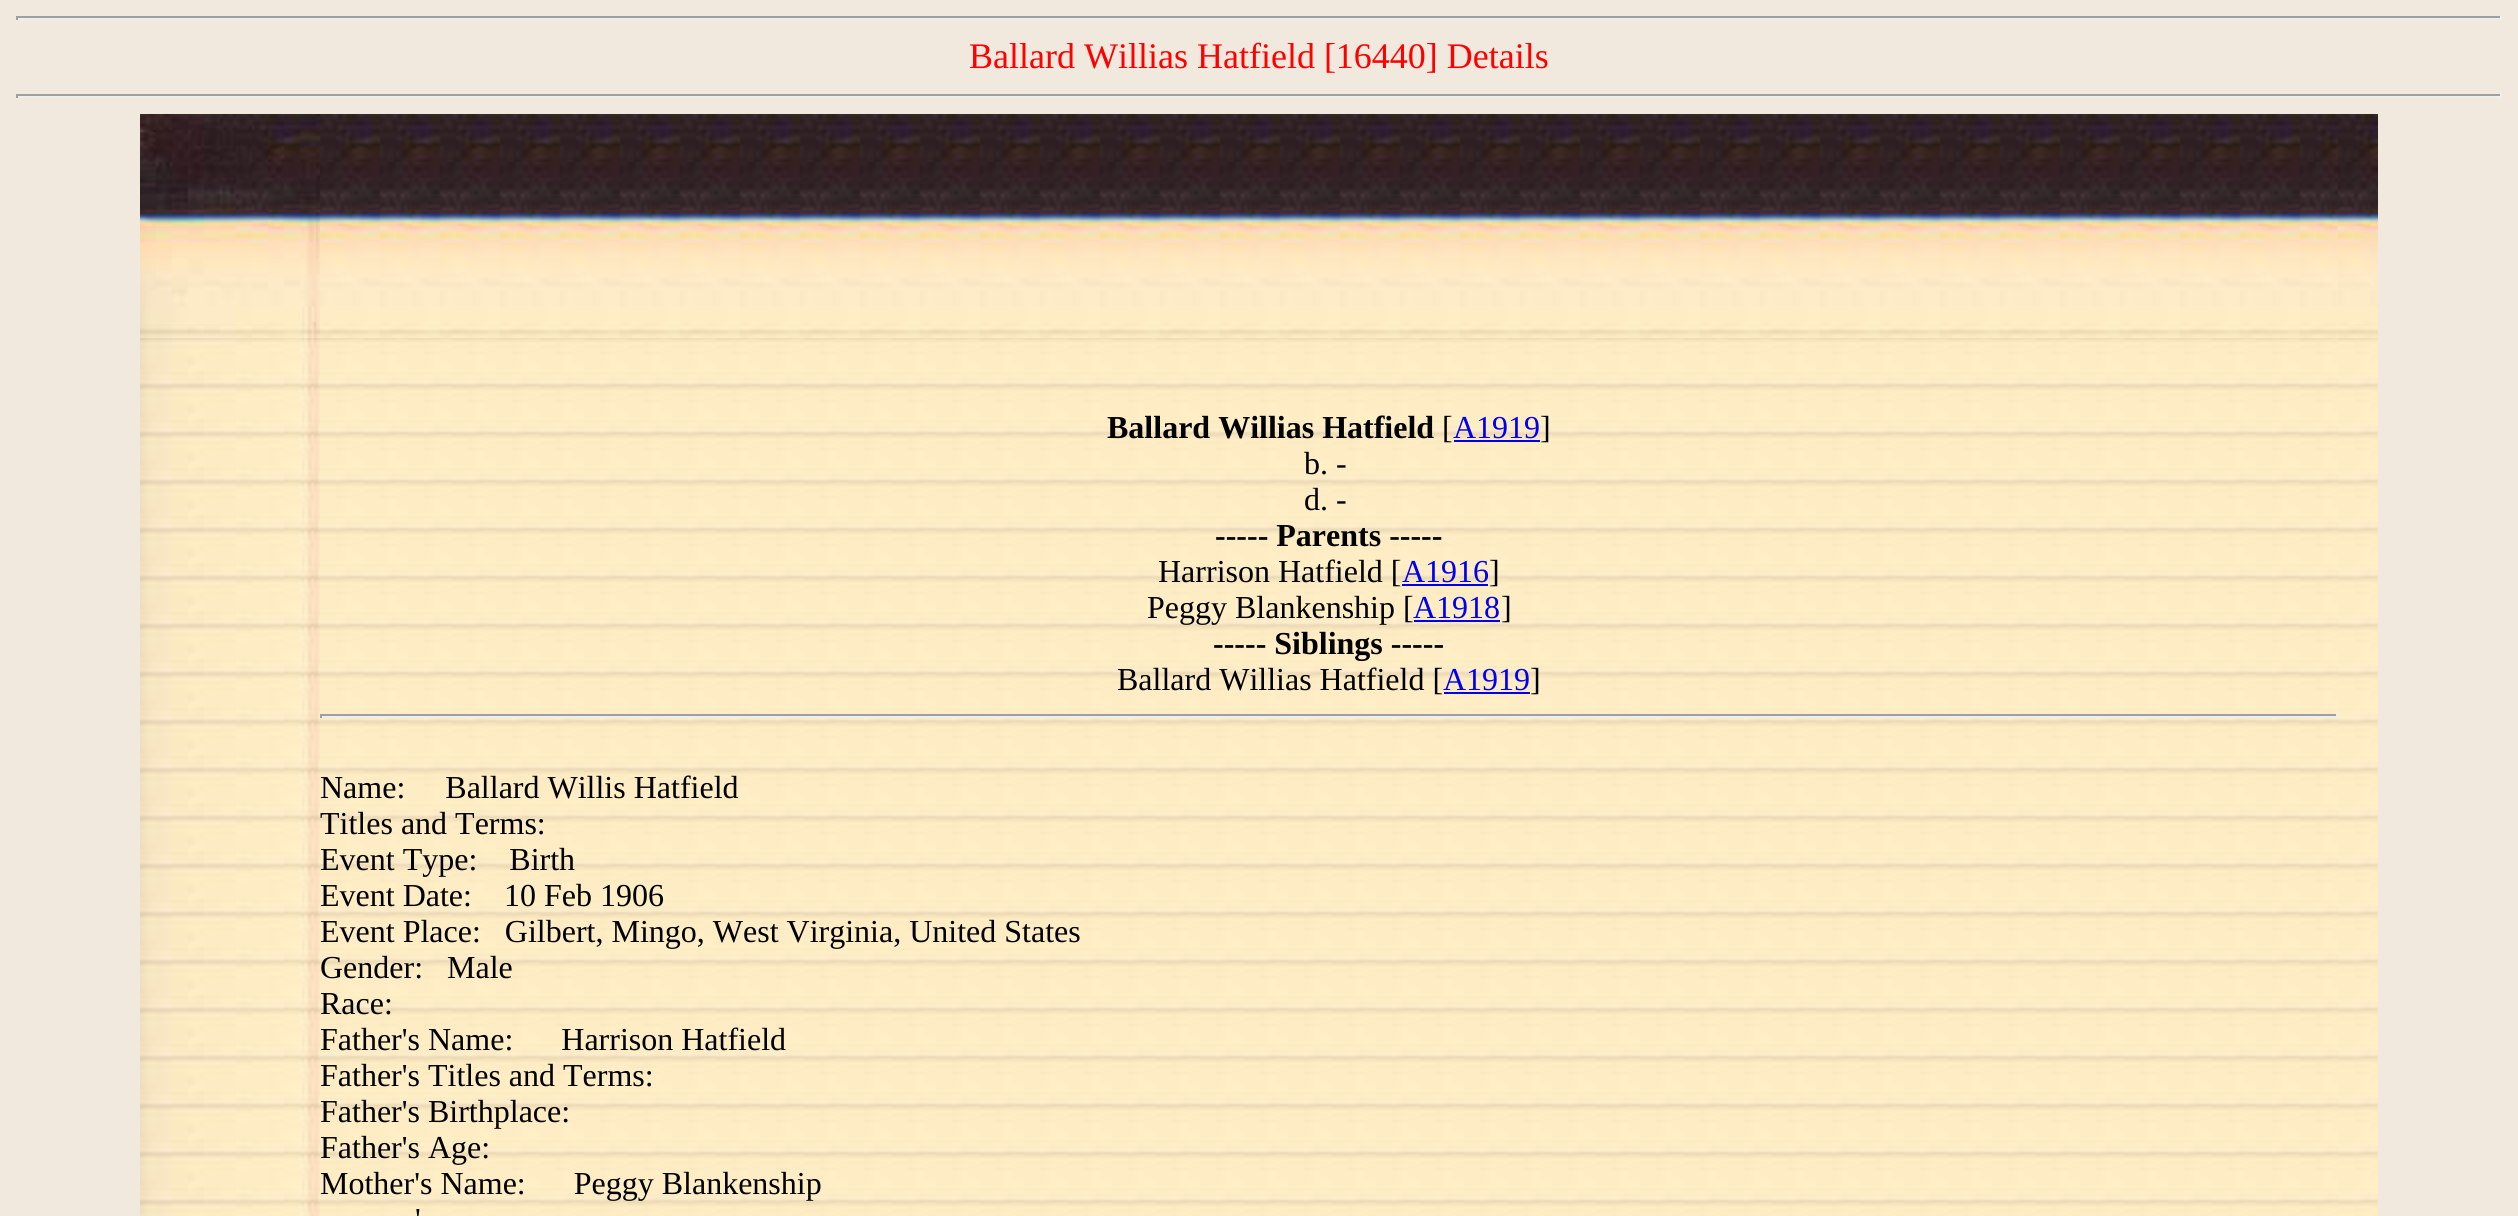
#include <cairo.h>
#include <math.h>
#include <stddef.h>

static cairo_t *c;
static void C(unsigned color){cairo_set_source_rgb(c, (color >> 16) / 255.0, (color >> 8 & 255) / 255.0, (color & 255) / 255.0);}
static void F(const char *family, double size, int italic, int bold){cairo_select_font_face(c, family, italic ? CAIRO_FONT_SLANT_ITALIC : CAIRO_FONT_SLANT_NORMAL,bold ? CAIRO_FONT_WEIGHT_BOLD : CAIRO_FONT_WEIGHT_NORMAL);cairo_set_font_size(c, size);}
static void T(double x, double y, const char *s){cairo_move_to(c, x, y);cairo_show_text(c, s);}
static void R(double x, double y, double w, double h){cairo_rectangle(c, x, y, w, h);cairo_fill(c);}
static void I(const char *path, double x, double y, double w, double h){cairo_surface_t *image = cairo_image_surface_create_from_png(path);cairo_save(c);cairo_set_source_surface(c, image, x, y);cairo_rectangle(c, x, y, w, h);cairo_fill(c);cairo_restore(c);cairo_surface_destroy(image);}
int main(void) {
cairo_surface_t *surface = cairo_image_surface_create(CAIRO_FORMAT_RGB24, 2518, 1216);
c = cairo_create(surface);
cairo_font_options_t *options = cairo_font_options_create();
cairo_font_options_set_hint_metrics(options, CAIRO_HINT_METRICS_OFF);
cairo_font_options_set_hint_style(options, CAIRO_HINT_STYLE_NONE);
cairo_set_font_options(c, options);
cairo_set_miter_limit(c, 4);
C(0xf1e8de);
cairo_paint(c);
C(0x9f9f9f);
R(16,16,2486,2);
C(0xeeeeee);
R(2500,16,2,4);
R(16,18,2486,2);
C(0x9f9f9f);
R(16,16,2,4);
F("Liberation Serif",36,0,0);
C(0xff0000);
T(969,68,"Ballard Willias Hatfield [16440] Details");
C(0x9f9f9f);
R(16,94,2486,2);
C(0xeeeeee);
R(2500,94,2,4);
R(16,96,2486,2);
C(0x9f9f9f);
R(16,94,2,4);
I("1.png",140,114,180,224);
I("2.png",320,114,2018,224);
I("3.png",2338,114,40,224);
I("4.png",140,338,180,878);
I("5.png",320,338,2018,878);
F("Liberation Serif",32,0,1);
C(0x000000);
T(1107,438,"Ballard Willias Hatfield");
F("Liberation Serif",32,0,0);
T(1442,438,"[");
C(0x0000ee);
T(1453,438,"A1919");
R(1454,440,86,2);
C(0x000000);
T(1540,438,"]");
T(1304,474,"b. -");
T(1304,510,"d. -");
F("Liberation Serif",32,0,1);
T(1215,546,"----- Parents -----");
F("Liberation Serif",32,0,0);
T(1158,582,"Harrison Hatfield [");
C(0x0000ee);
T(1402,582,"A1916");
R(1402,584,86,2);
C(0x000000);
T(1489,582,"]");
T(1147,618,"Peggy Blankenship [");
C(0x0000ee);
T(1413,618,"A1918");
R(1414,620,86,2);
C(0x000000);
T(1501,618,"]");
F("Liberation Serif",32,0,1);
T(1213,654,"----- Siblings -----");
F("Liberation Serif",32,0,0);
T(1117,690,"Ballard Willias Hatfield [");
C(0x0000ee);
T(1443,690,"A1919");
R(1444,692,86,2);
C(0x000000);
T(1530,690,"]");
C(0x9f9f9f);
R(320,714,2018,2);
C(0xeeeeee);
R(2336,714,2,4);
R(320,716,2018,2);
C(0x9f9f9f);
R(320,714,2,4);
C(0x000000);
T(320,798,"Name:     Ballard Willis Hatfield");
T(320,834,"Titles and Terms:");
T(320,870,"Event Type:    Birth");
T(320,906,"Event Date:    10 Feb 1906");
T(320,942,"Event Place:   Gilbert, Mingo, West Virginia, United States");
T(320,978,"Gender:   Male");
T(320,1014,"Race:");
T(320,1050,"Father's Name:      Harrison Hatfield");
T(320,1086,"Father's Titles and Terms:");
T(320,1122,"Father's Birthplace:");
T(320,1158,"Father's Age:");
T(320,1194,"Mother's Name:      Peggy Blankenship");
T(415,1230,"'");
I("6.png",2338,338,40,878);
cairo_surface_write_to_png(surface, "o.png");
cairo_font_options_destroy(options);
cairo_destroy(c);
cairo_surface_destroy(surface);
return 0;
}
